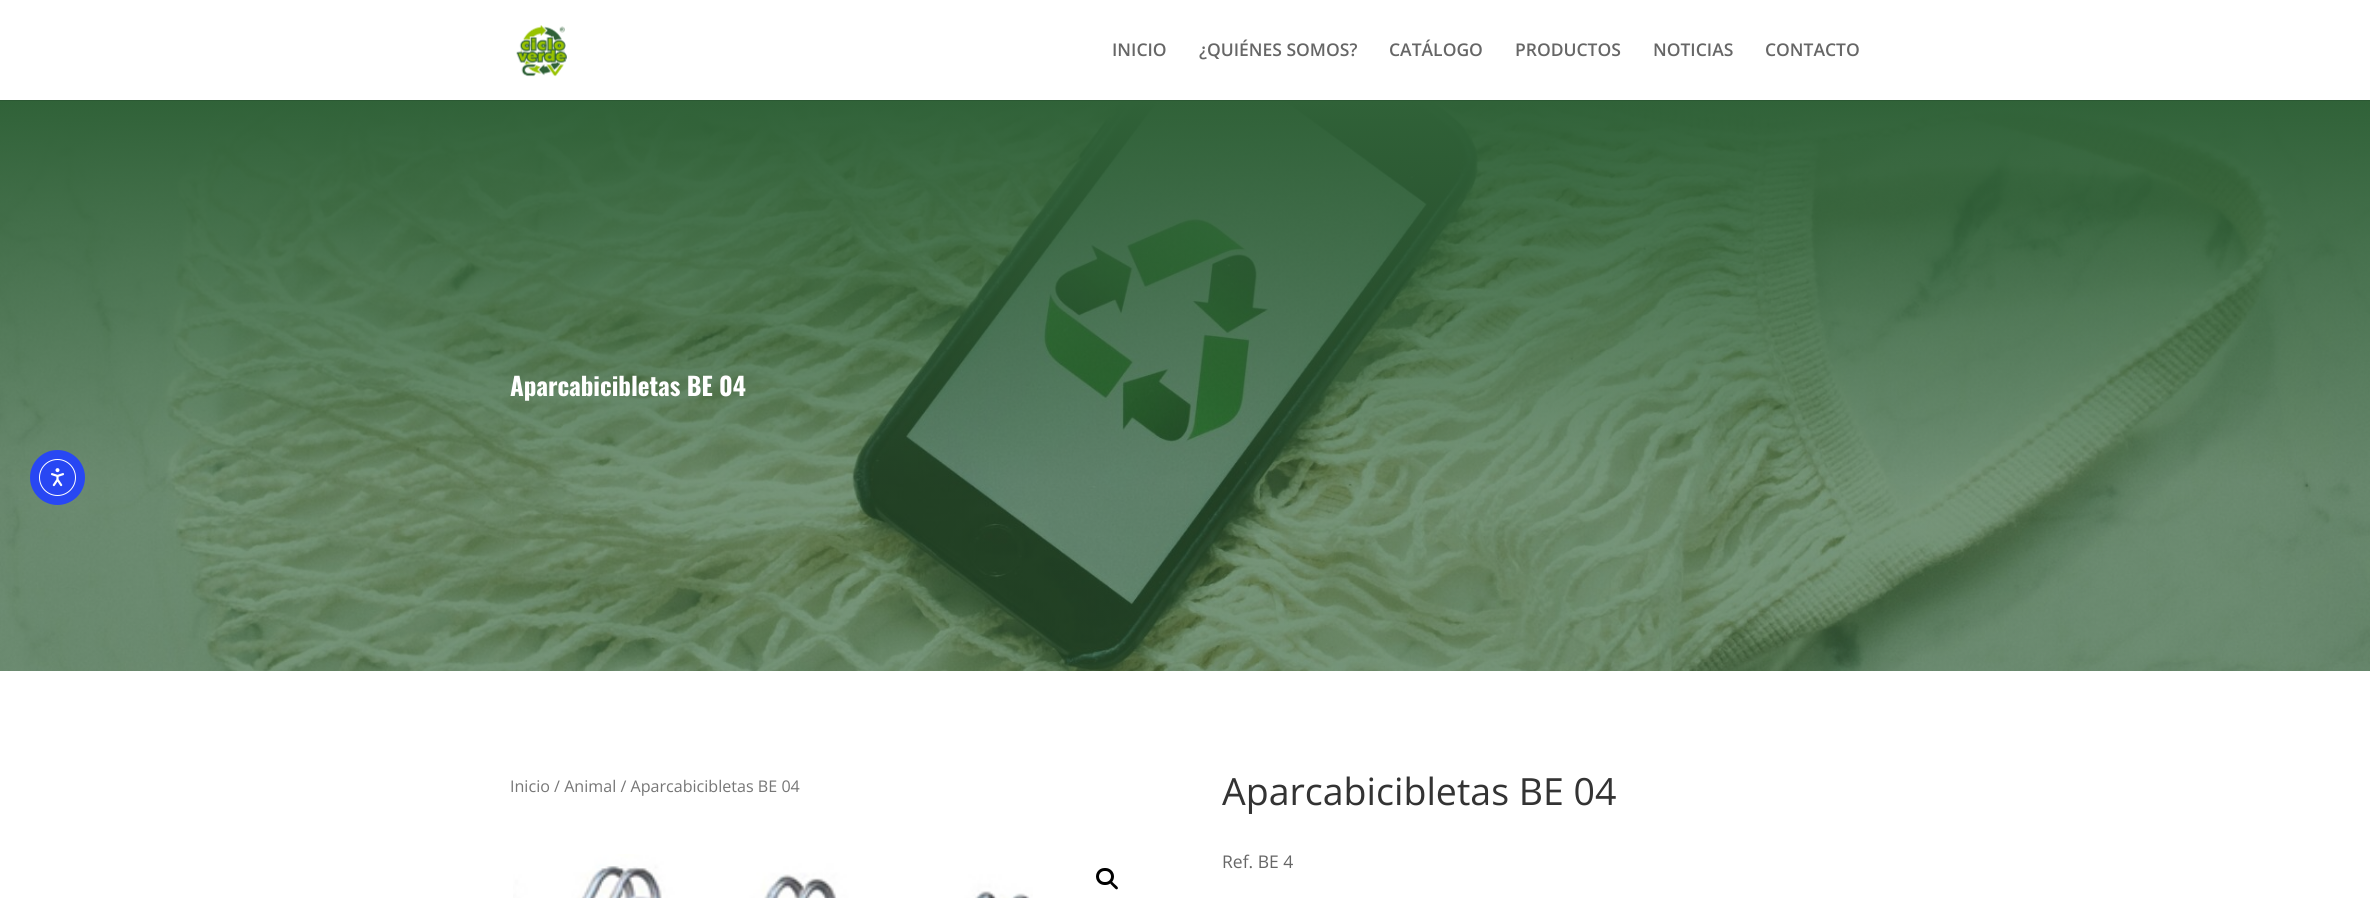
#include <cairo.h>
#include <math.h>
#include <stddef.h>

static cairo_t *c;
static void C(unsigned color){cairo_set_source_rgb(c, (color >> 16) / 255.0, (color >> 8 & 255) / 255.0, (color & 255) / 255.0);}
static void F(const char *family, double size, int italic, int bold){cairo_select_font_face(c, family, italic ? CAIRO_FONT_SLANT_ITALIC : CAIRO_FONT_SLANT_NORMAL,bold ? CAIRO_FONT_WEIGHT_BOLD : CAIRO_FONT_WEIGHT_NORMAL);cairo_set_font_size(c, size);}
static void T(double x, double y, const char *s){cairo_move_to(c, x, y);cairo_show_text(c, s);}
static void R(double x, double y, double w, double h){cairo_rectangle(c, x, y, w, h);cairo_fill(c);}
static void Q(double x, double y, double w, double h, double r){cairo_new_sub_path(c);cairo_arc(c, x + w - r, y + h - r, r, 0, M_PI / 2);cairo_arc(c, x + r, y + h - r, r, M_PI / 2, M_PI);cairo_arc(c, x + r, y + r, r, M_PI, 1.5 * M_PI);cairo_arc(c, x + w - r, y + r, r, 1.5 * M_PI, 2 * M_PI);cairo_close_path(c);}
static void I(const char *path, double x, double y, double w, double h){cairo_surface_t *image = cairo_image_surface_create_from_png(path);cairo_save(c);cairo_set_source_surface(c, image, x, y);cairo_rectangle(c, x, y, w, h);cairo_fill(c);cairo_restore(c);cairo_surface_destroy(image);}
int main(void) {
cairo_surface_t *surface = cairo_image_surface_create(CAIRO_FORMAT_RGB24, 2370, 898);
c = cairo_create(surface);
cairo_font_options_t *options = cairo_font_options_create();
cairo_font_options_set_hint_metrics(options, CAIRO_HINT_METRICS_OFF);
cairo_font_options_set_hint_style(options, CAIRO_HINT_STYLE_NONE);
cairo_set_font_options(c, options);
cairo_set_miter_limit(c, 4);
C(0xffffff);
cairo_paint(c);
I("3.png",0,101,2370,570);
C(0x2847f3);
cairo_arc(c,57.5,477.5,27.5,0,2 * M_PI);
cairo_fill(c);
cairo_arc(c,57.5,477.5,18,0,2 * M_PI);
C(0xffffff);
cairo_set_line_width(c,1);
cairo_stroke(c);
I("1.png",51,468,13,19);
C(0x2b5833);
R(0,100,2370,1);
I("2.png",516,25,51,52);
F("Open Sans SemiBold",17.5,0,0);
C(0x666666);
T(1112,56,"INICIO");
T(1199,56,"¿QUIÉNES SOMOS?");
T(1389,56,"CATÁLOGO");
T(1515,56,"PRODUCTOS");
T(1653,56,"NOTICIAS");
T(1765,56,"CONTACTO");
F("Oswald",25,0,1);
C(0xffffff);
T(510,396,"Aparcabicibletas BE 04");
F("Open Sans",16.1,0,0);
C(0x767676);
T(510,792,"Inicio / Animal / Aparcabicibletas BE 04");
I("4.png",513,854,520,44);
Q(1097.5,869.5,15,14,7);
C(0x000000);
cairo_set_line_width(c,3);
cairo_stroke(c);
cairo_new_path(c);
cairo_move_to(c,1110.5,882);
cairo_curve_to(c,1112,880.5,1114,884,1115,884.5);
cairo_curve_to(c,1116,885.5,1119,887.5,1117.5,889);
cairo_curve_to(c,1116,890.5,1114,887,1113,886.5);
cairo_curve_to(c,1112.5,885.5,1109,883.5,1110.5,882);
cairo_close_path(c);
cairo_fill(c);
F("Open Sans",37.5,0,0);
C(0x333333);
T(1222,805,"Aparcabicibletas BE 04");
F("Open Sans",17.5,0,0);
C(0x666666);
T(1222,868,"Ref. BE 4");
cairo_surface_write_to_png(surface, "o.png");
cairo_font_options_destroy(options);
cairo_destroy(c);
cairo_surface_destroy(surface);
return 0;
}
